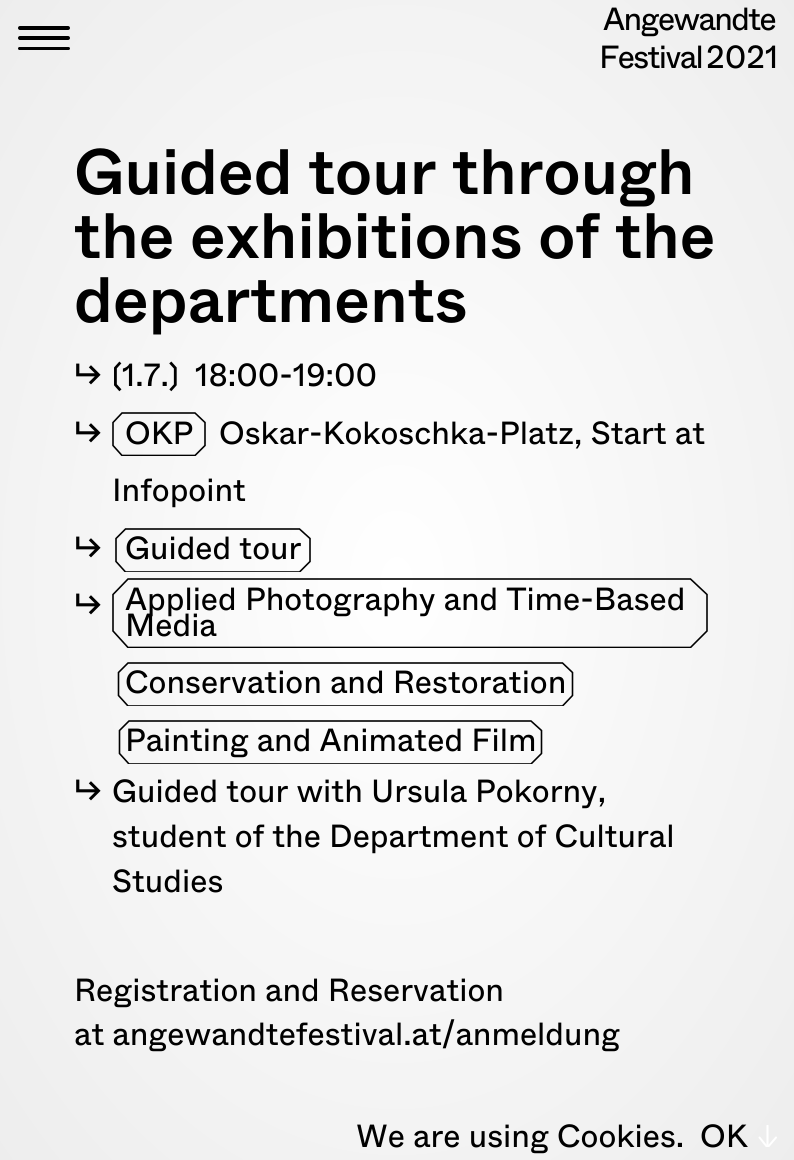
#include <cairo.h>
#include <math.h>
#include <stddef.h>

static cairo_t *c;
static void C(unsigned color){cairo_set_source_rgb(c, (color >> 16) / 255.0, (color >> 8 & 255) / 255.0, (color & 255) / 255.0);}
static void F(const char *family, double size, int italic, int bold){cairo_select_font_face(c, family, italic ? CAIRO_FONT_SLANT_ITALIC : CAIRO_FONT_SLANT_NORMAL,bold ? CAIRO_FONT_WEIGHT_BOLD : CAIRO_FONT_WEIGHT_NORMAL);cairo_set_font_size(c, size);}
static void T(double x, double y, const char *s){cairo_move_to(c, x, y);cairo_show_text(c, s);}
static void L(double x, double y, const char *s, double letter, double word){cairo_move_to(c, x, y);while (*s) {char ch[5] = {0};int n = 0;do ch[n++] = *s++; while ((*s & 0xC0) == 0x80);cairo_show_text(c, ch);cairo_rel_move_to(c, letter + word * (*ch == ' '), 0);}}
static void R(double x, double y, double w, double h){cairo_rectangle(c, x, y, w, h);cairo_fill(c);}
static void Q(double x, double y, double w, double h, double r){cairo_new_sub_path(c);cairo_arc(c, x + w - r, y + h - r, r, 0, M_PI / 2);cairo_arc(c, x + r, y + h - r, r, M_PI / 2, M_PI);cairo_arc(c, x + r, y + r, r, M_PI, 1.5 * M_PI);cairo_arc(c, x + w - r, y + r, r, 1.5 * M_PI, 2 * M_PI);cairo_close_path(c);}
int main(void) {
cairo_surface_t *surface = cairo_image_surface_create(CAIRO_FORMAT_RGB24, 794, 1160);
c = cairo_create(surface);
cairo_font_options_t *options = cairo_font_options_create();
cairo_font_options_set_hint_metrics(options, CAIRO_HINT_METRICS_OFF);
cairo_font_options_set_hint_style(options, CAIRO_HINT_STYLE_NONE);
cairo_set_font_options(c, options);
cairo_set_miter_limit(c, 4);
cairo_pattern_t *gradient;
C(0xffffff);
cairo_paint(c);
gradient = cairo_pattern_create_radial(0,0,0,0,0,1);
cairo_pattern_set_matrix(gradient, &(cairo_matrix_t){1.0 / 786, 0, 0, 1.0 / 1148, -1.0 * 397 / 786, -1.0 * 580 / 1148});
cairo_pattern_add_color_stop_rgba(gradient,0,1,1,1,1);
cairo_pattern_add_color_stop_rgba(gradient,1,0.902,0.902,0.902,1);
cairo_set_source(c,gradient);
cairo_pattern_destroy(gradient);
R(0,0,794,1160);
C(0x000000);
Q(18,26,52,4,2);
cairo_fill(c);
Q(18,36,52,4,2);
cairo_fill(c);
Q(18,47,52,3,1.5);
cairo_fill(c);
F("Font",32,0,0);
L(603,30,"Angewandte",-1.6,0);
L(599,68,"Festival",-1.6,0);
T(706,68,"2021");
F("Font Medium",64,0,0);
T(74,194,"Guided tour through");
T(74,258,"the exhibitions of the");
T(74,322,"departments");
F("Font",32,0,0);
T(74,386,"↳");
T(112,386,"〔1.7.〕  18:00-19:00");
T(74,444,"↳");
cairo_save(c);
cairo_rectangle(c,112,412,94,44);
cairo_clip(c);
cairo_new_path(c);
cairo_move_to(c,122,413);
cairo_line_to(c,195,413);
cairo_line_to(c,205,422.5);
cairo_line_to(c,205,445.5);
cairo_line_to(c,195,455.5);
cairo_line_to(c,122,455.5);
cairo_line_to(c,113,445.5);
cairo_line_to(c,113,422.5);
cairo_close_path(c);
cairo_set_line_width(c,1.6);
cairo_stroke(c);
cairo_restore(c);
T(125,444,"OKP");
T(219,444,"Oskar-Kokoschka-Platz, Start at");
T(112,501,"Infopoint");
T(74,559,"↳");
cairo_save(c);
cairo_rectangle(c,112,528,202,44);
cairo_clip(c);
cairo_new_path(c);
cairo_move_to(c,125.5,529);
cairo_line_to(c,299.5,529);
cairo_line_to(c,310,538.5);
cairo_line_to(c,310,561.5);
cairo_line_to(c,299.5,572);
cairo_line_to(c,125.5,572);
cairo_line_to(c,116,561.5);
cairo_line_to(c,116,538.5);
cairo_close_path(c);
cairo_set_line_width(c,1.6);
cairo_stroke(c);
cairo_restore(c);
T(125,559,"Guided tour");
T(74,616,"↳");
cairo_save(c);
cairo_rectangle(c,112,578,596,70);
cairo_clip(c);
cairo_new_path(c);
cairo_move_to(c,128,579);
cairo_line_to(c,690.5,579);
cairo_line_to(c,707,594.5);
cairo_line_to(c,707,631);
cairo_line_to(c,690.5,647.5);
cairo_line_to(c,128,647.5);
cairo_line_to(c,113,631);
cairo_line_to(c,113,594.5);
cairo_close_path(c);
cairo_set_line_width(c,1.6);
cairo_stroke(c);
cairo_restore(c);
T(125,610,"Applied Photography and Time-Based");
T(125,636,"Media");
cairo_save(c);
cairo_rectangle(c,112,662,466,44);
cairo_clip(c);
cairo_new_path(c);
cairo_move_to(c,128,663);
cairo_line_to(c,562.5,663);
cairo_line_to(c,572.5,672.5);
cairo_line_to(c,572.5,695.5);
cairo_line_to(c,562.5,706);
cairo_line_to(c,128,706);
cairo_line_to(c,118.5,695.5);
cairo_line_to(c,118.5,672.5);
cairo_close_path(c);
cairo_set_line_width(c,1.6);
cairo_stroke(c);
cairo_restore(c);
T(125,693,"Conservation and Restoration");
cairo_save(c);
cairo_rectangle(c,112,720,436,44);
cairo_clip(c);
cairo_new_path(c);
cairo_move_to(c,129,721);
cairo_line_to(c,531,721);
cairo_line_to(c,541.5,730.5);
cairo_line_to(c,541.5,753.5);
cairo_line_to(c,531,764);
cairo_line_to(c,129,764);
cairo_line_to(c,119.5,753.5);
cairo_line_to(c,119.5,730.5);
cairo_close_path(c);
cairo_set_line_width(c,1.6);
cairo_stroke(c);
cairo_restore(c);
T(125,751,"Painting and Animated Film");
T(74,802,"↳");
T(112,802,"Guided tour with Ursula Pokorny,");
T(112,847,"student of the Department of Cultural");
T(112,892,"Studies");
T(74,1001,"Registration and Reservation");
T(74,1045,"at angewandtefestival.at/anmeldung");
T(356,1147,"We are using Cookies.");
T(700,1147,"OK");
cairo_save(c);
cairo_new_path(c);
cairo_move_to(c,778,1125);
cairo_line_to(c,778,1147);
cairo_line_to(c,755.5,1147);
cairo_line_to(c,755.5,1125);
cairo_close_path(c);
cairo_clip(c);
cairo_new_path(c);
cairo_move_to(c,776,1137.5);
cairo_line_to(c,767.5,1147.5);
cairo_line_to(c,759.5,1137.5);
cairo_move_to(c,767.5,1147.5);
cairo_line_to(c,767.5,1125.5);
C(0xffffff);
cairo_set_line_cap(c,CAIRO_LINE_CAP_ROUND);
cairo_set_line_join(c,CAIRO_LINE_JOIN_ROUND);
cairo_stroke(c);
cairo_restore(c);
cairo_surface_write_to_png(surface, "o.png");
cairo_font_options_destroy(options);
cairo_destroy(c);
cairo_surface_destroy(surface);
return 0;
}
